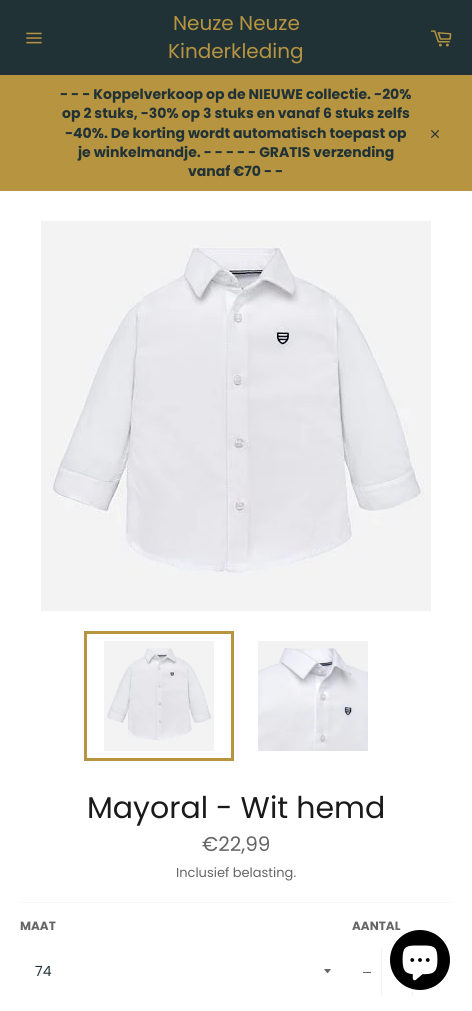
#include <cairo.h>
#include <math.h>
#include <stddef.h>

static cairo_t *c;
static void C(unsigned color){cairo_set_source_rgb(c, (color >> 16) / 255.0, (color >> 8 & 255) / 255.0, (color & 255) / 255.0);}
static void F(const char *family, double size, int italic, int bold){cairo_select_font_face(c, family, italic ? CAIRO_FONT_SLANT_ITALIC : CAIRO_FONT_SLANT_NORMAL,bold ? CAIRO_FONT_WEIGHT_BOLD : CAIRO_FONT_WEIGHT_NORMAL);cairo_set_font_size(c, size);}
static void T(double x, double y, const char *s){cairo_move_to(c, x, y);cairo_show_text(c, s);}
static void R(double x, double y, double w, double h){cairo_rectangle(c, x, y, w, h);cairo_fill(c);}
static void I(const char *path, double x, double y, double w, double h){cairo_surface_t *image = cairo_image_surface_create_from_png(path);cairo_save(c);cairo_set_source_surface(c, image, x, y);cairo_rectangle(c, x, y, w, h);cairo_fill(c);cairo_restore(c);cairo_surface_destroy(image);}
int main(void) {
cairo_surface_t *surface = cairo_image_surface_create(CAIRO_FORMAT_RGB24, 472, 1011);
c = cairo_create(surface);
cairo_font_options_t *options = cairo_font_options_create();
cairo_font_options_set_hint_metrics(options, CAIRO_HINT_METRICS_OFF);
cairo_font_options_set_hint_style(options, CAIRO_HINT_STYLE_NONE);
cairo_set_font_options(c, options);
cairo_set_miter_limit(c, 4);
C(0x213236);
cairo_paint(c);
I("1.png",26,32,16,12);
F("Poppins",20,0,0);
C(0xb69440);
T(173,30,"Neuze Neuze");
T(168,58,"Kinderkleding");
I("2.png",430,30,22,17);
R(0,75,472,116);
F("Poppins",14,0,1);
C(0x213236);
T(60,99,"- - - Koppelverkoop op de NIEUWE collectie. -20%");
T(62,118,"op 2 stuks, -30% op 3 stuks en vanaf 6 stuks zelfs");
T(65,138,"-40%. De korting wordt automatisch toepast op");
T(78,157,"je winkelmandje. - - - - - GRATIS verzending");
T(188,176,"vanaf €70 - -");
I("3.png",431,130,8,8);
C(0xffffff);
R(0,191,472,820);
I("4.png",41,221,390,390);
I("5.png",104,641,110,110);
cairo_rectangle(c,85.5,632.5,147,127);
C(0xb69440);
cairo_set_line_width(c,3);
cairo_stroke(c);
I("6.png",258,641,110,110);
F("Poppins",30,0,0);
C(0x1a1a1a);
T(87,818,"Mayoral - Wit hemd");
F("Poppins",20,0,0);
C(0x666666);
T(202,851,"€22,99");
F("Poppins",13,0,0);
T(176,877,"Inclusief belasting.");
C(0xf7f7f7);
R(20,902,432,1);
F("Poppins",12,0,1);
C(0x666666);
T(20,930,"MAAT");
cairo_new_path(c);
cairo_move_to(c,324,969);
cairo_curve_to(c,328.5,974.5,326.5,974.5,331,969);
cairo_close_path(c);
cairo_fill(c);
F("Poppins",14,0,0);
C(0x213236);
T(35,976,"74");
F("Poppins",12,0,1);
C(0x666666);
T(352,930,"AANTAL");
C(0xf2f2f2);
R(381,948,1,48);
C(0x666666);
R(363,972,8,1);
C(0xf2f2f2);
R(412,988,1,8);
C(0x000000);
cairo_new_path(c);
cairo_arc(c,420,960,30,0,2 * M_PI);
cairo_fill(c);
I("7.png",402,945,36,36);
cairo_surface_write_to_png(surface, "o.png");
cairo_font_options_destroy(options);
cairo_destroy(c);
cairo_surface_destroy(surface);
return 0;
}
